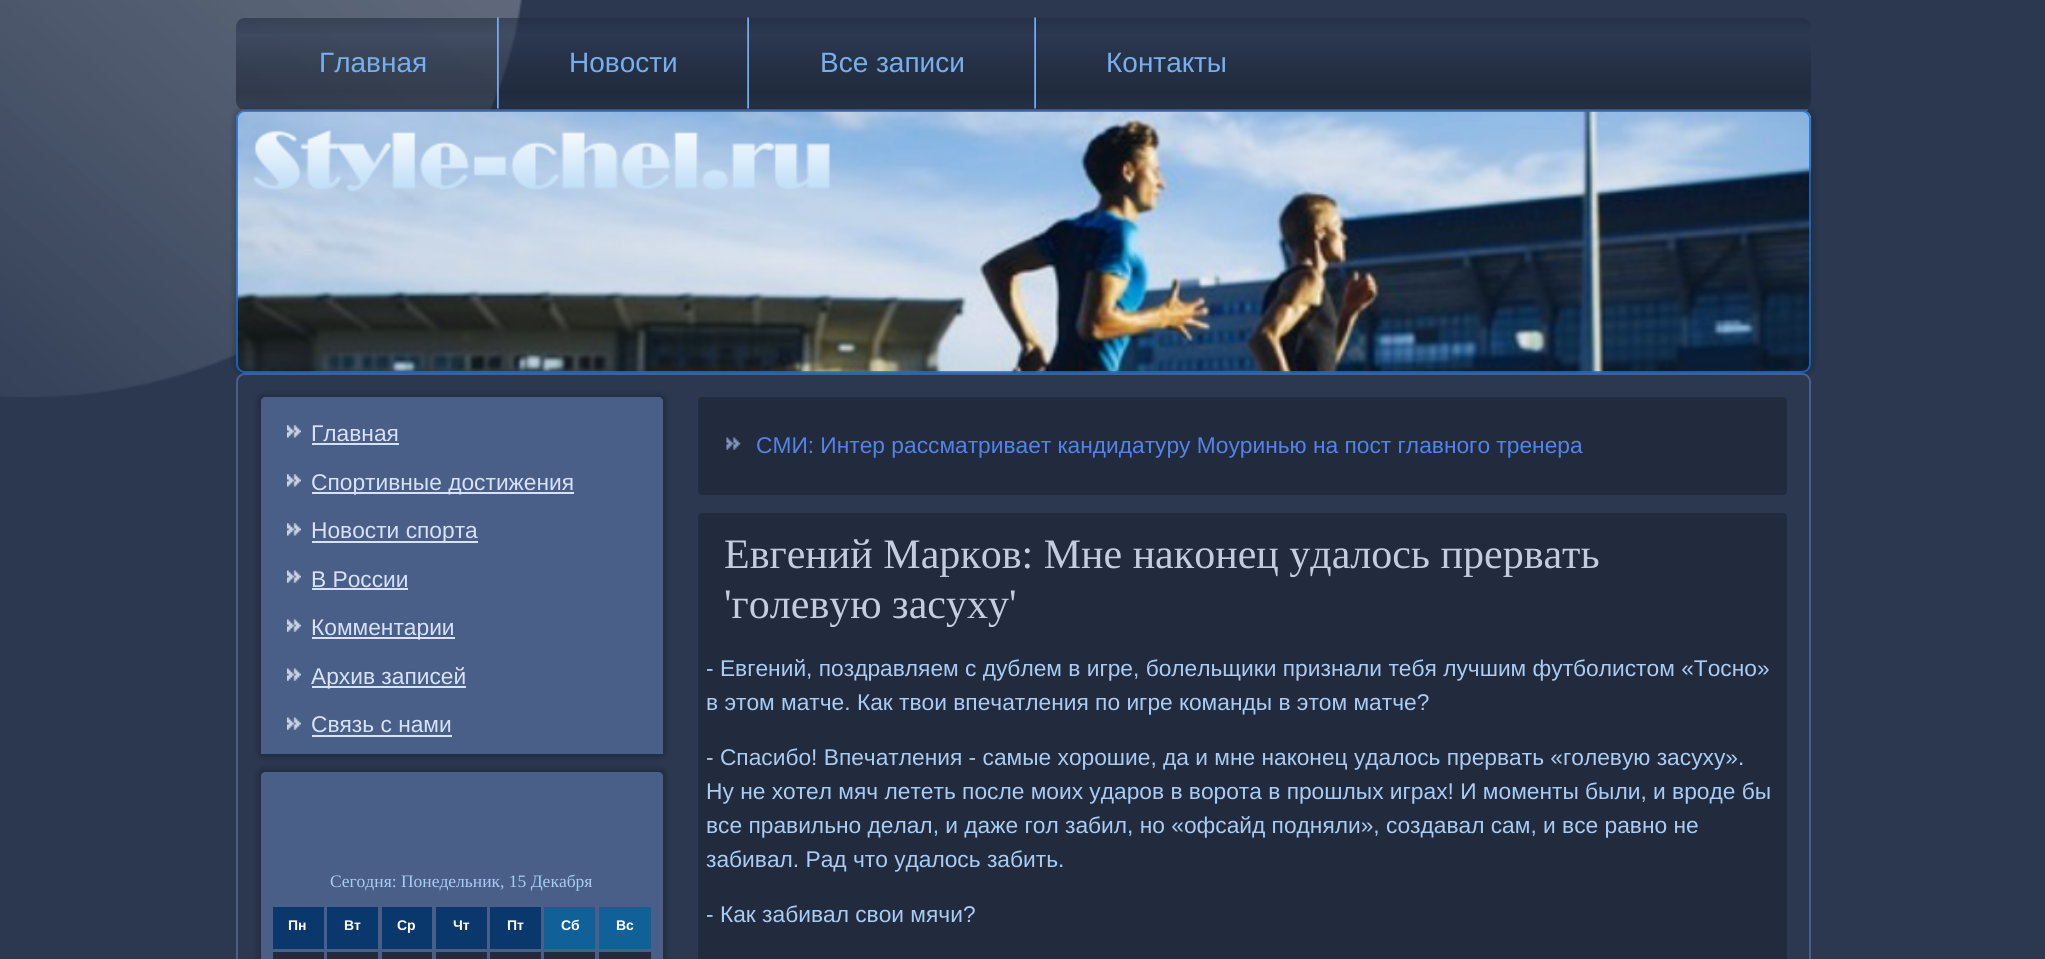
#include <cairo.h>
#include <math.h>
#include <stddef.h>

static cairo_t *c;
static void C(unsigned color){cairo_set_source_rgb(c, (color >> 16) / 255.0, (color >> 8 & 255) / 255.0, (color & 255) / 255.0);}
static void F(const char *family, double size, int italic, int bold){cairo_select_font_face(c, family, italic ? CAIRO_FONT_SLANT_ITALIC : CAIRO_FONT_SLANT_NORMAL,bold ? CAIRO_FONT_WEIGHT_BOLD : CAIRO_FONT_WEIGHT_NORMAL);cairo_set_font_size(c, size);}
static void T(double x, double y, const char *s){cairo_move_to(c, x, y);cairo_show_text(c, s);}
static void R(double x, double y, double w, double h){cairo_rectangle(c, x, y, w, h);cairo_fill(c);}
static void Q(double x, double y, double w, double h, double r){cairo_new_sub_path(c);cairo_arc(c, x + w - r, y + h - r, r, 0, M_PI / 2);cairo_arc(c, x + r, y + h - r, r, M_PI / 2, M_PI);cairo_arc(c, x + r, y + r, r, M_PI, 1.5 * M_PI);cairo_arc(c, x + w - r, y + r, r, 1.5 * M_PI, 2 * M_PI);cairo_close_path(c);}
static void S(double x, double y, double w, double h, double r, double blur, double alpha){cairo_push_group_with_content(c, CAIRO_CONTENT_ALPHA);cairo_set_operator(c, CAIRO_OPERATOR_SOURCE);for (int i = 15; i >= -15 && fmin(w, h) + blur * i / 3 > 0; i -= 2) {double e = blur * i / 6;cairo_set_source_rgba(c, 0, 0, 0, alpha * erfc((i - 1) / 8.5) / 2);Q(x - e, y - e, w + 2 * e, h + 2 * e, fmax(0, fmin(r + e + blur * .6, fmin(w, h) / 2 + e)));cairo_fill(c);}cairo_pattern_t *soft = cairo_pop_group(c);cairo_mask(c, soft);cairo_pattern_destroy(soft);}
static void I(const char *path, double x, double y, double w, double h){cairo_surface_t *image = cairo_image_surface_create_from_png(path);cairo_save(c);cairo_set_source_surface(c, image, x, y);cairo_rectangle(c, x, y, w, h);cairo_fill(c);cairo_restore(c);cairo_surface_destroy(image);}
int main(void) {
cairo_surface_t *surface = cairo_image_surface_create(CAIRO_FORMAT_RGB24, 2045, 959);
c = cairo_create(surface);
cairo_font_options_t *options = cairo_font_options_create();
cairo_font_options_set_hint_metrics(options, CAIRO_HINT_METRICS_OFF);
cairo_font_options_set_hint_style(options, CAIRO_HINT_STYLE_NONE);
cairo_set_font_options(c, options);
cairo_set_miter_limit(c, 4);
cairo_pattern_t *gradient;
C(0x2b3850);
cairo_paint(c);
I("1.png",0,0,522,397);
C(0x000000);
S(233,107,1582,269,12,2.5,.15);
gradient = cairo_pattern_create_linear(1024,17,1024,110);
cairo_pattern_add_color_stop_rgba(gradient,0,0.133,0.173,0.247,.6);
cairo_pattern_add_color_stop_rgba(gradient,.2,0.176,0.227,0.325,.6);
cairo_pattern_add_color_stop_rgba(gradient,.5,0.133,0.173,0.247,.6);
cairo_pattern_add_color_stop_rgba(gradient,.8,0.106,0.137,0.196,.6);
cairo_pattern_add_color_stop_rgba(gradient,1,0.133,0.173,0.247,.6);
cairo_set_source(c,gradient);
cairo_pattern_destroy(gradient);
Q(236,18,1575,92,9);
cairo_fill(c);
I("4.png",236,110,1576,263);
Q(237,111,1573,261,8);
cairo_set_source_rgba(c,0.102,0.435,0.82,0.8);
cairo_stroke(c);
cairo_set_source_rgba(c,0.286,0.373,0.533,0.8);
R(242,109,1566,2);
F("Liberation Sans",28,0,0);
C(0x77afee);
T(319,72,"Главная");
I("2.png",497,17,2,92);
T(569,72,"Новости");
I("3.png",747,17,2,92);
T(820,72,"Все записи");
I("3.png",1034,17,2,92);
T(1106,72,"Контакты");
C(0x2b3850);
Q(237,374,1573,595,8);
cairo_fill_preserve(c);
C(0x495f88);
cairo_stroke(c);
C(0x000000);
S(257,394,410,364,7,2.5,.2);
C(0x495f88);
cairo_new_path(c);
cairo_move_to(c,265,397);
cairo_line_to(c,659,397);
cairo_curve_to(c,661,397,663,399,663,401);
cairo_line_to(c,663,754);
cairo_line_to(c,261,754);
cairo_line_to(c,261,401);
cairo_curve_to(c,261,399,263,397,265,397);
cairo_close_path(c);
cairo_fill(c);
I("5.png",287,425,14,13);
F("Liberation Sans",22.75,0,0);
C(0xd7e2f9);
T(311,441,"Главная");
R(312,443,87,2);
I("5.png",287,474,14,13);
R(312,492,262,2);
T(311,490,"Спортивные достижения");
I("5.png",287,523,14,13);
R(312,541,166,2);
T(311,538,"Новости спорта");
I("6.png",287,570,14,13);
T(311,587,"В России");
R(312,588,96,2);
I("6.png",287,619,14,13);
R(312,637,143,2);
T(311,635,"Комментарии");
I("6.png",287,668,14,13);
R(312,686,154,2);
T(311,684,"Архив записей");
I("6.png",287,717,14,13);
T(311,732,"Связь c нами");
R(312,735,140,2);
C(0x000000);
S(257,768,410,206,7,2.5,.2);
C(0x495f88);
cairo_new_path(c);
cairo_move_to(c,265,772);
cairo_line_to(c,659,772);
cairo_curve_to(c,661,772,663,774,663,776);
cairo_line_to(c,663,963);
cairo_line_to(c,261,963);
cairo_line_to(c,261,776);
cairo_curve_to(c,261,774,263,772,265,772);
cairo_close_path(c);
cairo_fill(c);
F("Liberation Serif",17.5,0,0);
C(0xa9ccf4);
T(330,887,"Сегодня: Понедельник, 15 Декабря");
C(0x0a386c);
R(273,907,51,42);
F("Liberation Sans",14,0,1);
C(0xffffff);
T(288,930,"Пн");
C(0x0a386c);
R(327,907,51,42);
C(0xffffff);
T(344,930,"Вт");
C(0x0a386c);
R(382,907,50,42);
C(0xffffff);
T(397,930,"Ср");
C(0x0a386c);
R(436,907,51,42);
C(0xffffff);
T(453,930,"Чт");
C(0x0a386c);
R(490,907,51,42);
C(0xffffff);
T(507,930,"Пт");
C(0x106197);
R(544,907,51,42);
C(0xffffff);
T(561,930,"Сб");
C(0x106197);
R(599,907,52,42);
C(0xffffff);
T(616,930,"Вс");
C(0x212b3d);
R(273,952,51,7);
R(327,952,51,7);
R(382,952,50,7);
R(436,952,51,7);
R(490,952,51,7);
R(544,952,51,7);
R(599,952,52,7);
Q(698,397,1089,98,4);
cairo_fill(c);
I("7.png",726,437,15,13);
F("Liberation Sans",22.75,0,0);
C(0x5483e8);
T(756,453,"СМИ: Интер рассматривает кандидатуру Моуринью на пост главного тренера");
C(0x212b3d);
Q(698,513,1089,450,4);
cairo_fill(c);
F("Liberation Serif",42,0,0);
C(0xc3cddf);
T(724,568,"Евгений Марков: Мне наконец удалось прервать");
T(724,618,"'голевую засуху'");
F("Liberation Sans",22.75,0,0);
C(0xa9ccf4);
T(706,676,"- Евгений, поздравляем с дублем в игре, болельщики признали тебя лучшим футболистом «Тосно»");
T(706,710,"в этом матче. Как твои впечатления по игре команды в этом матче?");
T(706,765,"- Спасибо! Впечатления - самые хорошие, да и мне наконец удалось прервать «голевую засуху».");
T(706,799,"Ну не хотел мяч лететь после моих ударов в ворота в прошлых играх! И моменты были, и вроде бы");
T(706,833,"все правильно делал, и даже гол забил, но «офсайд подняли», создавал сам, и все равно не");
T(706,867,"забивал. Рад что удалось забить.");
T(706,922,"- Как забивал свои мячи?");
cairo_surface_write_to_png(surface, "o.png");
cairo_font_options_destroy(options);
cairo_destroy(c);
cairo_surface_destroy(surface);
return 0;
}
